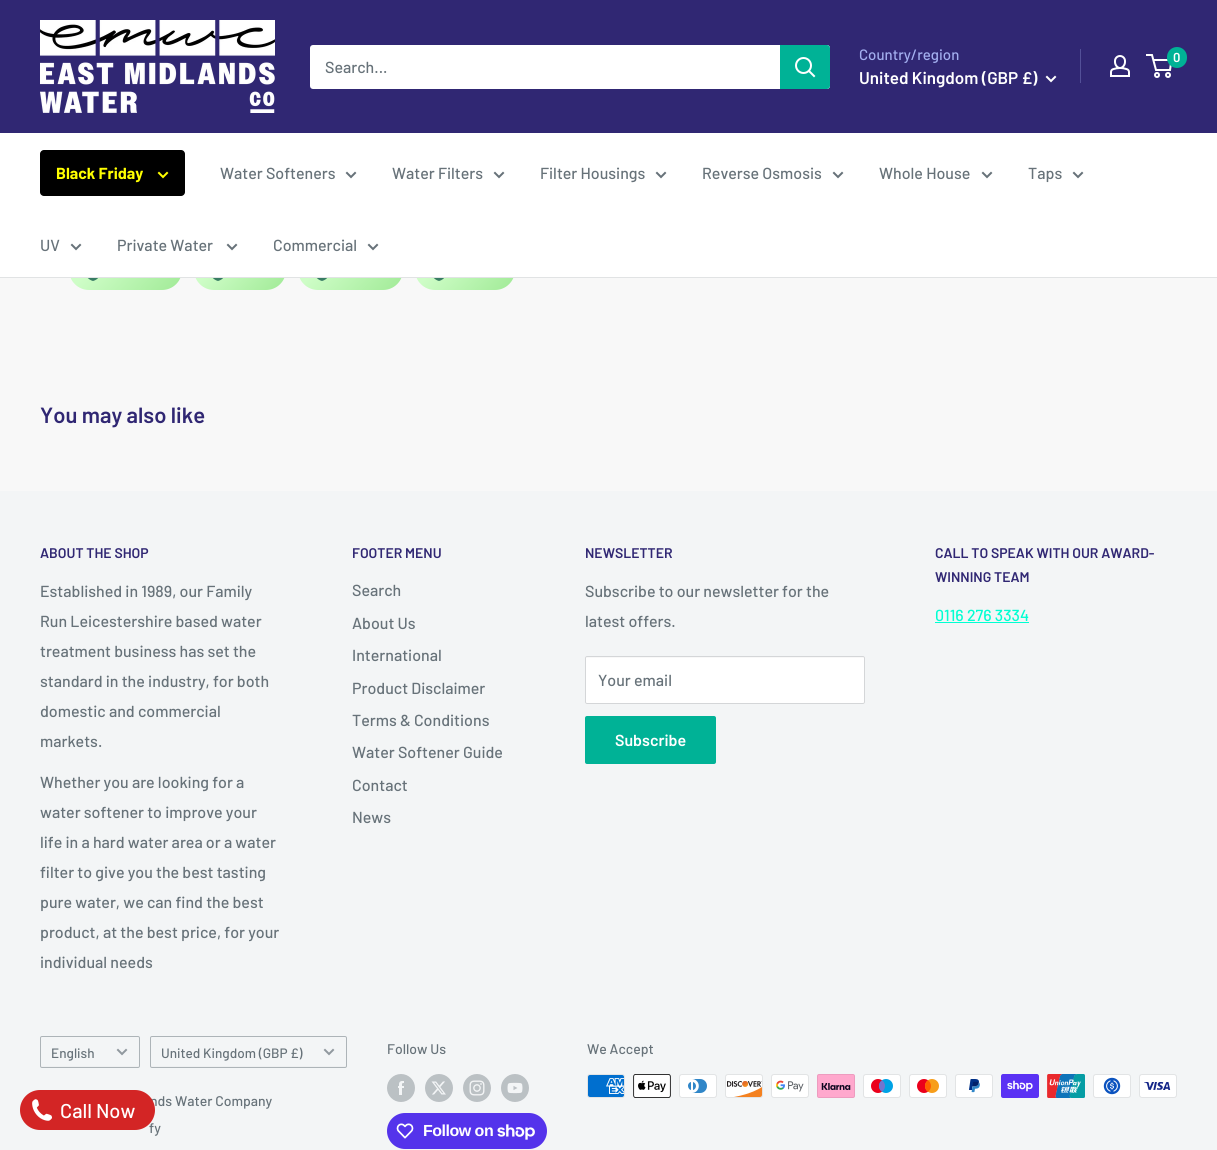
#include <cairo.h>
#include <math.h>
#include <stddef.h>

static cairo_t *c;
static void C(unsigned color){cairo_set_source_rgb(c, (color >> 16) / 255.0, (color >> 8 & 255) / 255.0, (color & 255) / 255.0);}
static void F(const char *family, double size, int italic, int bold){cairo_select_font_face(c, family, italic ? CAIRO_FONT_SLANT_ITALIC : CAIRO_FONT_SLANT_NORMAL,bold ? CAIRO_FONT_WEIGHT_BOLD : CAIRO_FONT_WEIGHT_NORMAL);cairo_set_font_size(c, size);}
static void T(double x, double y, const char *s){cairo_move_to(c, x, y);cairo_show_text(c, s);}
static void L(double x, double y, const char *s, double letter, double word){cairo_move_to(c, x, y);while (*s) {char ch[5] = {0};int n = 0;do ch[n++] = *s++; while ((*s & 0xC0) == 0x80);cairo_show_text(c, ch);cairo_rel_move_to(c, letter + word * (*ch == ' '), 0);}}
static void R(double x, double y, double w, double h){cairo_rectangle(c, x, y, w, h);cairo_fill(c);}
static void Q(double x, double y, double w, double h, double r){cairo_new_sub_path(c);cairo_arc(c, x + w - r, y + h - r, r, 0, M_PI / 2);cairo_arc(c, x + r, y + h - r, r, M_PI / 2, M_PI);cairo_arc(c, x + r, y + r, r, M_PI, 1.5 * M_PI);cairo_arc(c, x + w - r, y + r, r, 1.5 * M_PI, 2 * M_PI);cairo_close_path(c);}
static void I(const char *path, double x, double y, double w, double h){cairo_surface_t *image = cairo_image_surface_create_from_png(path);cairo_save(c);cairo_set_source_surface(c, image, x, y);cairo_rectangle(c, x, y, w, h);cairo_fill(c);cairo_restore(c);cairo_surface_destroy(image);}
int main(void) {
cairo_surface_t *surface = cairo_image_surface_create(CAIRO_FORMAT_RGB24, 1217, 1150);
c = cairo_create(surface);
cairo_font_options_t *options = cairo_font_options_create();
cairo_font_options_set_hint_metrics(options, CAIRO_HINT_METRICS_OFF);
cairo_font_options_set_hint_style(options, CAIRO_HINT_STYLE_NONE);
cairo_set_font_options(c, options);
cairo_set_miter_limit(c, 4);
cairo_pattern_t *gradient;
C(0xf8f8f8);
cairo_paint(c);
C(0x302773);
R(0,0,1217,133);
I("1.png",40,20,235,93);
C(0xffffff);
Q(310,45,520,44,3);
cairo_fill(c);
F("Barlow Medium",16,0,0);
C(0x677279);
T(325,73,"Search...");
C(0x00b296);
cairo_new_path(c);
cairo_move_to(c,780,45);
cairo_line_to(c,827,45);
cairo_curve_to(c,828.5,45,830,46.5,830,48);
cairo_line_to(c,830,86);
cairo_curve_to(c,830,87.5,828.5,89,827,89);
cairo_line_to(c,780,89);
cairo_close_path(c);
cairo_fill(c);
cairo_new_path(c);
cairo_move_to(c,814,76);
cairo_line_to(c,809,71);
C(0xffffff);
cairo_set_line_cap(c,CAIRO_LINE_CAP_SQUARE);
cairo_stroke(c);
cairo_arc(c,803.5,65.5,7.5,0,2 * M_PI);
cairo_set_line_cap(c,CAIRO_LINE_CAP_BUTT);
cairo_stroke(c);
F("Barlow Medium",15,0,0);
C(0xa3afef);
T(859,60,"Country/region");
F("Barlow SemiBold",17,0,0);
C(0xffffff);
T(859,84,"United Kingdom (GBP £)");
cairo_new_path(c);
cairo_move_to(c,1055,77);
cairo_line_to(c,1051,81);
cairo_line_to(c,1047,77);
cairo_set_line_cap(c,CAIRO_LINE_CAP_SQUARE);
cairo_stroke(c);
C(0x535098);
R(1080,49,1,34);
I("2.png",1110,55,20,22);
cairo_arc(c,1157,75,2,0,2 * M_PI);
C(0xffffff);
cairo_set_line_cap(c,CAIRO_LINE_CAP_BUTT);
cairo_stroke(c);
cairo_arc(c,1168,75,2,0,2 * M_PI);
cairo_stroke(c);
cairo_new_path(c);
cairo_move_to(c,1153.5,60);
cairo_line_to(c,1171.5,60);
cairo_line_to(c,1170,70);
cairo_line_to(c,1156,70);
cairo_line_to(c,1152,55);
cairo_line_to(c,1146,55);
cairo_stroke(c);
C(0x00b296);
Q(1167,47,20,21,10);
cairo_fill(c);
F("Barlow SemiBold",13,0,0);
C(0xffffff);
T(1173,62,"0");
gradient = cairo_pattern_create_linear(86,232,165,308);
cairo_pattern_add_color_stop_rgba(gradient,.26,0.808,0.992,0.78,1);
cairo_pattern_add_color_stop_rgba(gradient,.93,0.647,0.925,0.608,1);
cairo_set_source(c,gradient);
cairo_pattern_destroy(gradient);
Q(69,250,113,40,20);
cairo_fill(c);
gradient = cairo_pattern_create_linear(206,238,274,302);
cairo_pattern_add_color_stop_rgba(gradient,.26,0.808,0.992,0.78,1);
cairo_pattern_add_color_stop_rgba(gradient,.93,0.647,0.925,0.608,1);
cairo_set_source(c,gradient);
cairo_pattern_destroy(gradient);
Q(194,250,92,40,20);
cairo_fill(c);
gradient = cairo_pattern_create_linear(313,234,388,306);
cairo_pattern_add_color_stop_rgba(gradient,.26,0.808,0.992,0.78,1);
cairo_pattern_add_color_stop_rgba(gradient,.93,0.647,0.925,0.608,1);
cairo_set_source(c,gradient);
cairo_pattern_destroy(gradient);
Q(298,250,105,40,20);
cairo_fill(c);
gradient = cairo_pattern_create_linear(429,236,501,304);
cairo_pattern_add_color_stop_rgba(gradient,.26,0.808,0.992,0.78,1);
cairo_pattern_add_color_stop_rgba(gradient,.93,0.647,0.925,0.608,1);
cairo_set_source(c,gradient);
cairo_pattern_destroy(gradient);
Q(415,250,100,40,20);
cairo_fill(c);
C(0xffffff);
R(0,133,1217,144);
C(0xe1e3e4);
R(0,277,1217,1);
C(0x000000);
Q(40,150,145,46,4);
cairo_fill(c);
F("Barlow",16,0,1);
C(0xffff00);
T(56,179,"Black Friday");
cairo_new_path(c);
cairo_move_to(c,167,173);
cairo_line_to(c,163,177);
cairo_line_to(c,159,173);
cairo_set_line_cap(c,CAIRO_LINE_CAP_SQUARE);
cairo_stroke(c);
F("Barlow Medium",16,0,0);
C(0x677279);
T(220,179,"Water Softeners");
cairo_new_path(c);
cairo_move_to(c,355,173);
cairo_line_to(c,351,177);
cairo_line_to(c,347,173);
cairo_stroke(c);
T(392,179,"Water Filters");
cairo_new_path(c);
cairo_move_to(c,503,173);
cairo_line_to(c,499,177);
cairo_line_to(c,495,173);
cairo_stroke(c);
T(540,179,"Filter Housings");
cairo_new_path(c);
cairo_move_to(c,665,173);
cairo_line_to(c,661,177);
cairo_line_to(c,657,173);
cairo_stroke(c);
T(702,179,"Reverse Osmosis");
cairo_new_path(c);
cairo_move_to(c,842,173);
cairo_line_to(c,838,177);
cairo_line_to(c,834,173);
cairo_stroke(c);
T(879,179,"Whole House");
cairo_new_path(c);
cairo_move_to(c,991,173);
cairo_line_to(c,987,177);
cairo_line_to(c,983,173);
cairo_stroke(c);
T(1028,179,"Taps");
cairo_new_path(c);
cairo_move_to(c,1082,173);
cairo_line_to(c,1078,177);
cairo_line_to(c,1074,173);
cairo_stroke(c);
T(40,251,"UV");
cairo_new_path(c);
cairo_move_to(c,80,245);
cairo_line_to(c,76,249);
cairo_line_to(c,72,245);
cairo_stroke(c);
T(117,251,"Private Water");
cairo_new_path(c);
cairo_move_to(c,236,245);
cairo_line_to(c,232,249);
cairo_line_to(c,228,245);
cairo_stroke(c);
T(273,251,"Commercial");
cairo_new_path(c);
cairo_move_to(c,377,245);
cairo_line_to(c,373,249);
cairo_line_to(c,369,245);
cairo_stroke(c);
I("3.png",87,278,11,3);
I("4.png",212,278,11,3);
I("5.png",316,278,11,3);
I("6.png",433,278,11,3);
F("Barlow SemiBold",22,0,0);
C(0x302773);
T(40,423,"You may also like");
C(0xf3f5f6);
R(0,491,1217,659);
F("Barlow SemiBold",14,0,0);
C(0x302773);
T(40,558,"ABOUT THE SHOP");
F("Barlow Medium",16,0,0);
C(0x677279);
T(40,597,"Established in 1989, our Family");
T(40,627,"Run Leicestershire based water");
T(40,657,"treatment business has set the");
T(40,687,"standard in the industry, for both");
T(40,717,"domestic and commercial");
T(40,747,"markets.");
T(40,788,"Whether you are looking for a");
T(40,818,"water softener to improve your");
T(40,848,"life in a hard water area or a water");
T(40,878,"filter to give you the best tasting");
T(40,908,"pure water, we can find the best");
T(40,938,"product, at the best price, for your");
T(40,968,"individual needs");
F("Barlow SemiBold",14,0,0);
C(0x302773);
T(352,558,"FOOTER MENU");
F("Barlow Medium",16,0,0);
C(0x677279);
T(352,596,"Search");
T(352,629,"About Us");
T(352,661,"International");
T(352,694,"Product Disclaimer");
T(352,726,"Terms & Conditions");
T(352,758,"Water Softener Guide");
T(352,791,"Contact");
T(352,823,"News");
F("Barlow SemiBold",14,0,0);
C(0x302773);
T(585,558,"NEWSLETTER");
F("Barlow Medium",16,0,0);
C(0x677279);
T(585,597,"Subscribe to our newsletter for the");
T(585,627,"latest offers.");
C(0xffffff);
Q(585,656,280,48,2);
cairo_fill(c);
C(0xf8f8f8);
cairo_new_path(c);
cairo_move_to(c,587,658);
cairo_line_to(c,863,658);
cairo_curve_to(c,864,658,864,658,864,659);
cairo_curve_to(c,864,658,864,657,863,657);
cairo_line_to(c,587,657);
cairo_line_to(c,586,657);
cairo_line_to(c,586,659);
cairo_curve_to(c,586,658,586,658,587,658);
cairo_close_path(c);
cairo_fill(c);
Q(585.5,656.5,279,47,1.5);
C(0xd4d6d8);
cairo_set_line_width(c,1);
cairo_set_line_cap(c,CAIRO_LINE_CAP_BUTT);
cairo_stroke(c);
C(0x677279);
T(598,686,"Your email");
C(0x00b296);
Q(585,716,131,48,2);
cairo_fill(c);
F("Barlow SemiBold",16,0,0);
C(0xffffff);
T(615,746,"Subscribe");
F("Barlow SemiBold",14,0,0);
C(0x302773);
T(935,558,"CALL TO SPEAK WITH OUR AWARD-");
T(935,582,"WINNING TEAM");
F("Barlow Medium",16,0,0);
C(0x00ffd2);
T(935,621,"0116 276 3334");
R(935,622,94,1);
C(0xeef0f1);
cairo_new_path(c);
cairo_move_to(c,41,1065);
cairo_curve_to(c,41,1066,41,1067,42,1067);
cairo_line_to(c,138,1067);
cairo_curve_to(c,139,1067,139,1066,139,1065);
cairo_curve_to(c,139,1066,139,1066,138,1066);
cairo_line_to(c,42,1066);
cairo_curve_to(c,41,1066,41,1066,41,1065);
cairo_close_path(c);
cairo_fill(c);
Q(40.5,1036.5,99,31,1.5);
C(0xadb4b8);
cairo_stroke(c);
F("Barlow Medium",13.6,0,0);
C(0x677279);
T(51,1058,"English");
cairo_new_path(c);
cairo_move_to(c,126,1050);
cairo_line_to(c,122,1054);
cairo_line_to(c,118,1050);
C(0x91999f);
cairo_set_line_width(c,2);
cairo_set_line_cap(c,CAIRO_LINE_CAP_SQUARE);
cairo_stroke(c);
C(0xeef0f1);
cairo_new_path(c);
cairo_move_to(c,151,1065);
cairo_curve_to(c,151,1066,151,1067,152,1067);
cairo_line_to(c,346,1067);
cairo_line_to(c,346,1065);
cairo_line_to(c,346,1066);
cairo_line_to(c,152,1066);
cairo_curve_to(c,151,1066,151,1066,151,1065);
cairo_close_path(c);
cairo_fill(c);
Q(150.5,1036.5,196,31,1.5);
C(0xadb4b8);
cairo_set_line_width(c,1);
cairo_set_line_cap(c,CAIRO_LINE_CAP_BUTT);
cairo_stroke(c);
C(0x677279);
T(161,1058,"United Kingdom (GBP £)");
cairo_new_path(c);
cairo_move_to(c,333,1050);
cairo_line_to(c,329,1054);
cairo_line_to(c,325,1050);
C(0x91999f);
cairo_set_line_width(c,2);
cairo_set_line_cap(c,CAIRO_LINE_CAP_SQUARE);
cairo_stroke(c);
F("Barlow Medium",14,0,0);
C(0x677279);
T(150,1106,"nds Water Company");
T(149,1133,"fy");
T(387,1054,"Follow Us");
I("7.png",387,1074,28,28);
I("8.png",425,1074,28,28);
I("9.png",463,1074,28,28);
I("10.png",501,1074,28,28);
C(0x5433eb);
Q(387,1113,160,36,18);
cairo_fill(c);
I("11.png",396,1123,18,16);
F("Liberation Sans",16,0,1);
C(0xffffff);
L(423,1136,"Follow on",-.5,0);
I("12.png",497,1124,38,16);
F("Barlow Medium",14,0,0);
C(0x677279);
T(587,1054,"We Accept");
I("13.png",587,1074,38,24);
I("14.png",633,1074,38,24);
I("15.png",679,1074,38,24);
I("16.png",725,1074,38,24);
I("17.png",771,1074,38,24);
I("18.png",817,1074,38,24);
I("19.png",863,1074,38,24);
I("20.png",909,1074,38,24);
I("21.png",955,1074,38,24);
I("22.png",1001,1074,38,24);
I("23.png",1047,1074,38,24);
I("24.png",1093,1074,38,24);
I("25.png",1139,1074,38,24);
C(0xd32525);
Q(20,1090,135,40,20);
cairo_fill(c);
I("26.png",32,1099,20,22);
F("Barlow Medium",20,0,0);
C(0xffffff);
T(60,1118,"Call Now");
cairo_surface_write_to_png(surface, "o.png");
cairo_font_options_destroy(options);
cairo_destroy(c);
cairo_surface_destroy(surface);
return 0;
}
